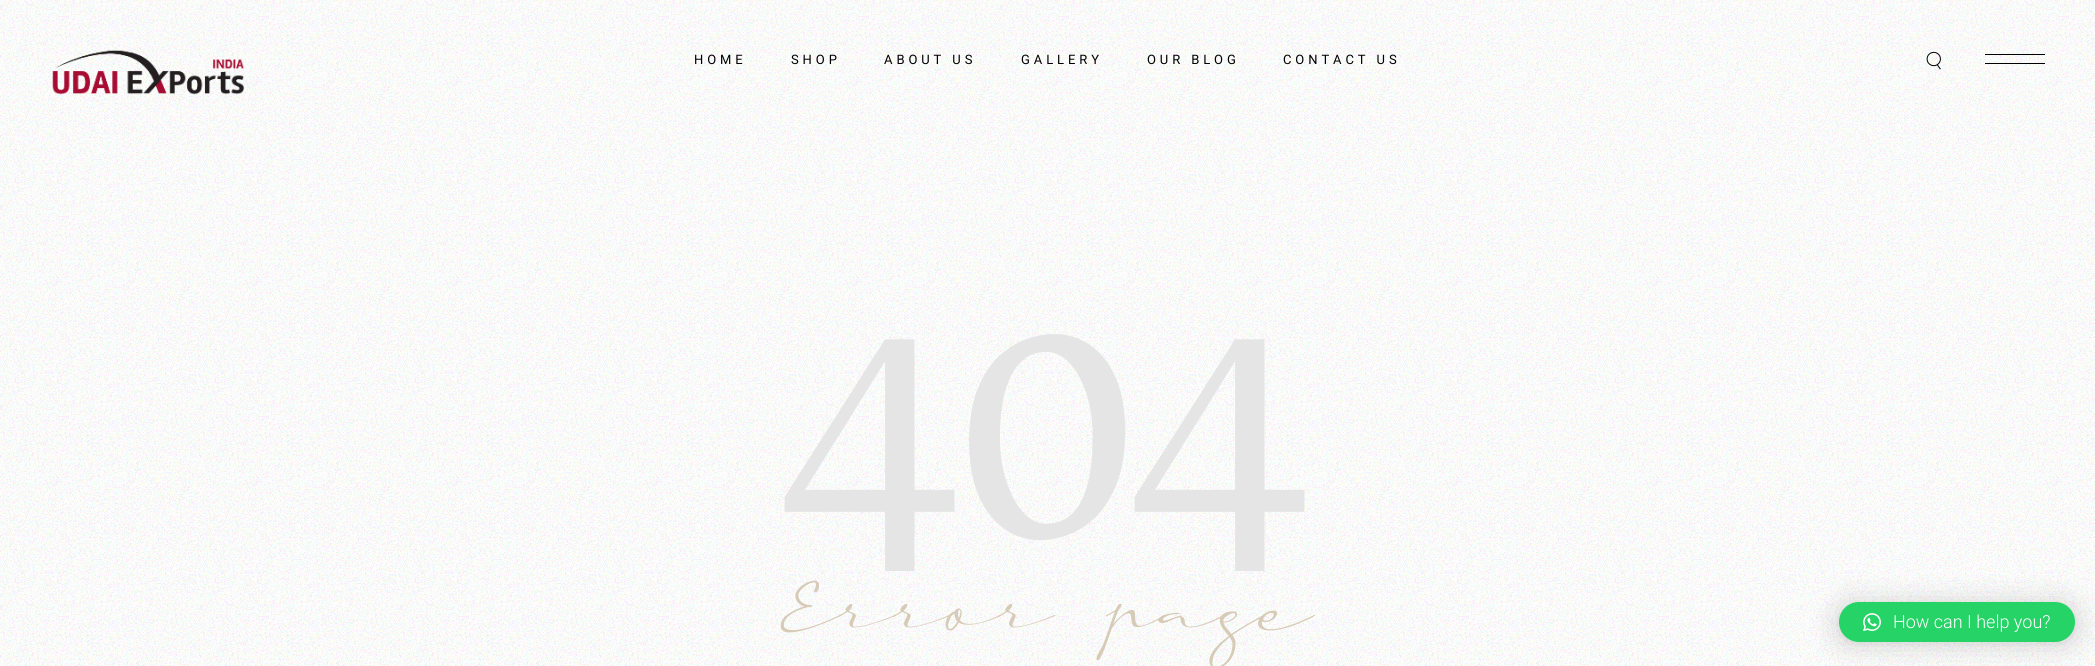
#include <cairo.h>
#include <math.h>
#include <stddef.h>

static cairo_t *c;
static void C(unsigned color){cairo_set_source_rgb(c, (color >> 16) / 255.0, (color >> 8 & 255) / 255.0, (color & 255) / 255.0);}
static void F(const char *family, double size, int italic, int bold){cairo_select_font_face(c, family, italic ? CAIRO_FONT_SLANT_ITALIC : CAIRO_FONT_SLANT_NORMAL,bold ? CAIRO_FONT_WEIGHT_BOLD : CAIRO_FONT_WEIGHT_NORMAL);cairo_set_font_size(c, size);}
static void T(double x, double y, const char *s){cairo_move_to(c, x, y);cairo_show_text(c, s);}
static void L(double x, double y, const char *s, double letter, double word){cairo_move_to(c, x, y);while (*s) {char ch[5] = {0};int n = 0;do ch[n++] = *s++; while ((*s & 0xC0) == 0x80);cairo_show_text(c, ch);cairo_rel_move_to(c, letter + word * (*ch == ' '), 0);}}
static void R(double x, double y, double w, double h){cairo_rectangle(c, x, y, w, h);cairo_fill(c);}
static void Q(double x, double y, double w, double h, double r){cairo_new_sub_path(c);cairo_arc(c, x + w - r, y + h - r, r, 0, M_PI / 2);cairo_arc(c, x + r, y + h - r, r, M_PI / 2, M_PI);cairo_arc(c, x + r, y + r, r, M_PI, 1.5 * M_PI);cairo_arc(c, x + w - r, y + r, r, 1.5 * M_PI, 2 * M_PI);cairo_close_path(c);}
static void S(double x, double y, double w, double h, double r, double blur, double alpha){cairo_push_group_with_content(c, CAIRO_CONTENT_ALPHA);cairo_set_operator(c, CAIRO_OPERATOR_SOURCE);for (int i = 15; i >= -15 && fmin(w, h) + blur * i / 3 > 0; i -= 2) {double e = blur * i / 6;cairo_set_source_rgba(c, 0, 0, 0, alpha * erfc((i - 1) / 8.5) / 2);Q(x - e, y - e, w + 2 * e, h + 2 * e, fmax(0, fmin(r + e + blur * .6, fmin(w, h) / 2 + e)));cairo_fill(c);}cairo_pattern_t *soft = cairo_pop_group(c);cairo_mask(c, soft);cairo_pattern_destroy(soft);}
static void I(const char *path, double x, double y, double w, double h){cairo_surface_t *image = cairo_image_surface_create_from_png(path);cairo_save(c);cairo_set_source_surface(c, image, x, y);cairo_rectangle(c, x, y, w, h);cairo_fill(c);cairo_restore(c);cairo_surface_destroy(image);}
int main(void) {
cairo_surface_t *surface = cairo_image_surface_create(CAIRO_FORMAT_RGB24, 2095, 666);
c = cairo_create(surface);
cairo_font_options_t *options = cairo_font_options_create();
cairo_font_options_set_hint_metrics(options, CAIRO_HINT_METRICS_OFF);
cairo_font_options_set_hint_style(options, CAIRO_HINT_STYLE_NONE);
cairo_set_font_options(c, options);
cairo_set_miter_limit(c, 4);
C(0xffffff);
cairo_paint(c);
I("1.png",0,0,2095,666);
I("2.png",52,50,193,45);
F("Roboto",13,0,0);
C(0x000000);
L(694,64,"HOME",3.9,0);
L(791,64,"SHOP",3.9,0);
L(884,64,"ABOUT US",3.9,0);
L(1021,64,"GALLERY",3.9,0);
L(1147,64,"OUR BLOG",3.9,0);
L(1283,64,"CONTACT US",3.9,0);
I("3.png",1926,51,15,19);
R(1985,54,60,1);
R(1985,63,60,1);
F("Belleza",350,0,0);
C(0xe5e5e5);
T(785,536,"404");
F("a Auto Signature",90,0,0);
C(0xd7cbb7);
T(782,628,"Error page");
C(0x000000);
S(1839,604,236,40,20,16,.16);
S(1839,603,236,40,20,3,.06);
C(0x25d366);
Q(1839,602,236,40,20);
cairo_fill(c);
I("4.png",1863,613,18,19);
F("Roboto Light",18,0,0);
C(0xffffff);
T(1893,628,"How can I help you?");
cairo_surface_write_to_png(surface, "o.png");
cairo_font_options_destroy(options);
cairo_destroy(c);
cairo_surface_destroy(surface);
return 0;
}
